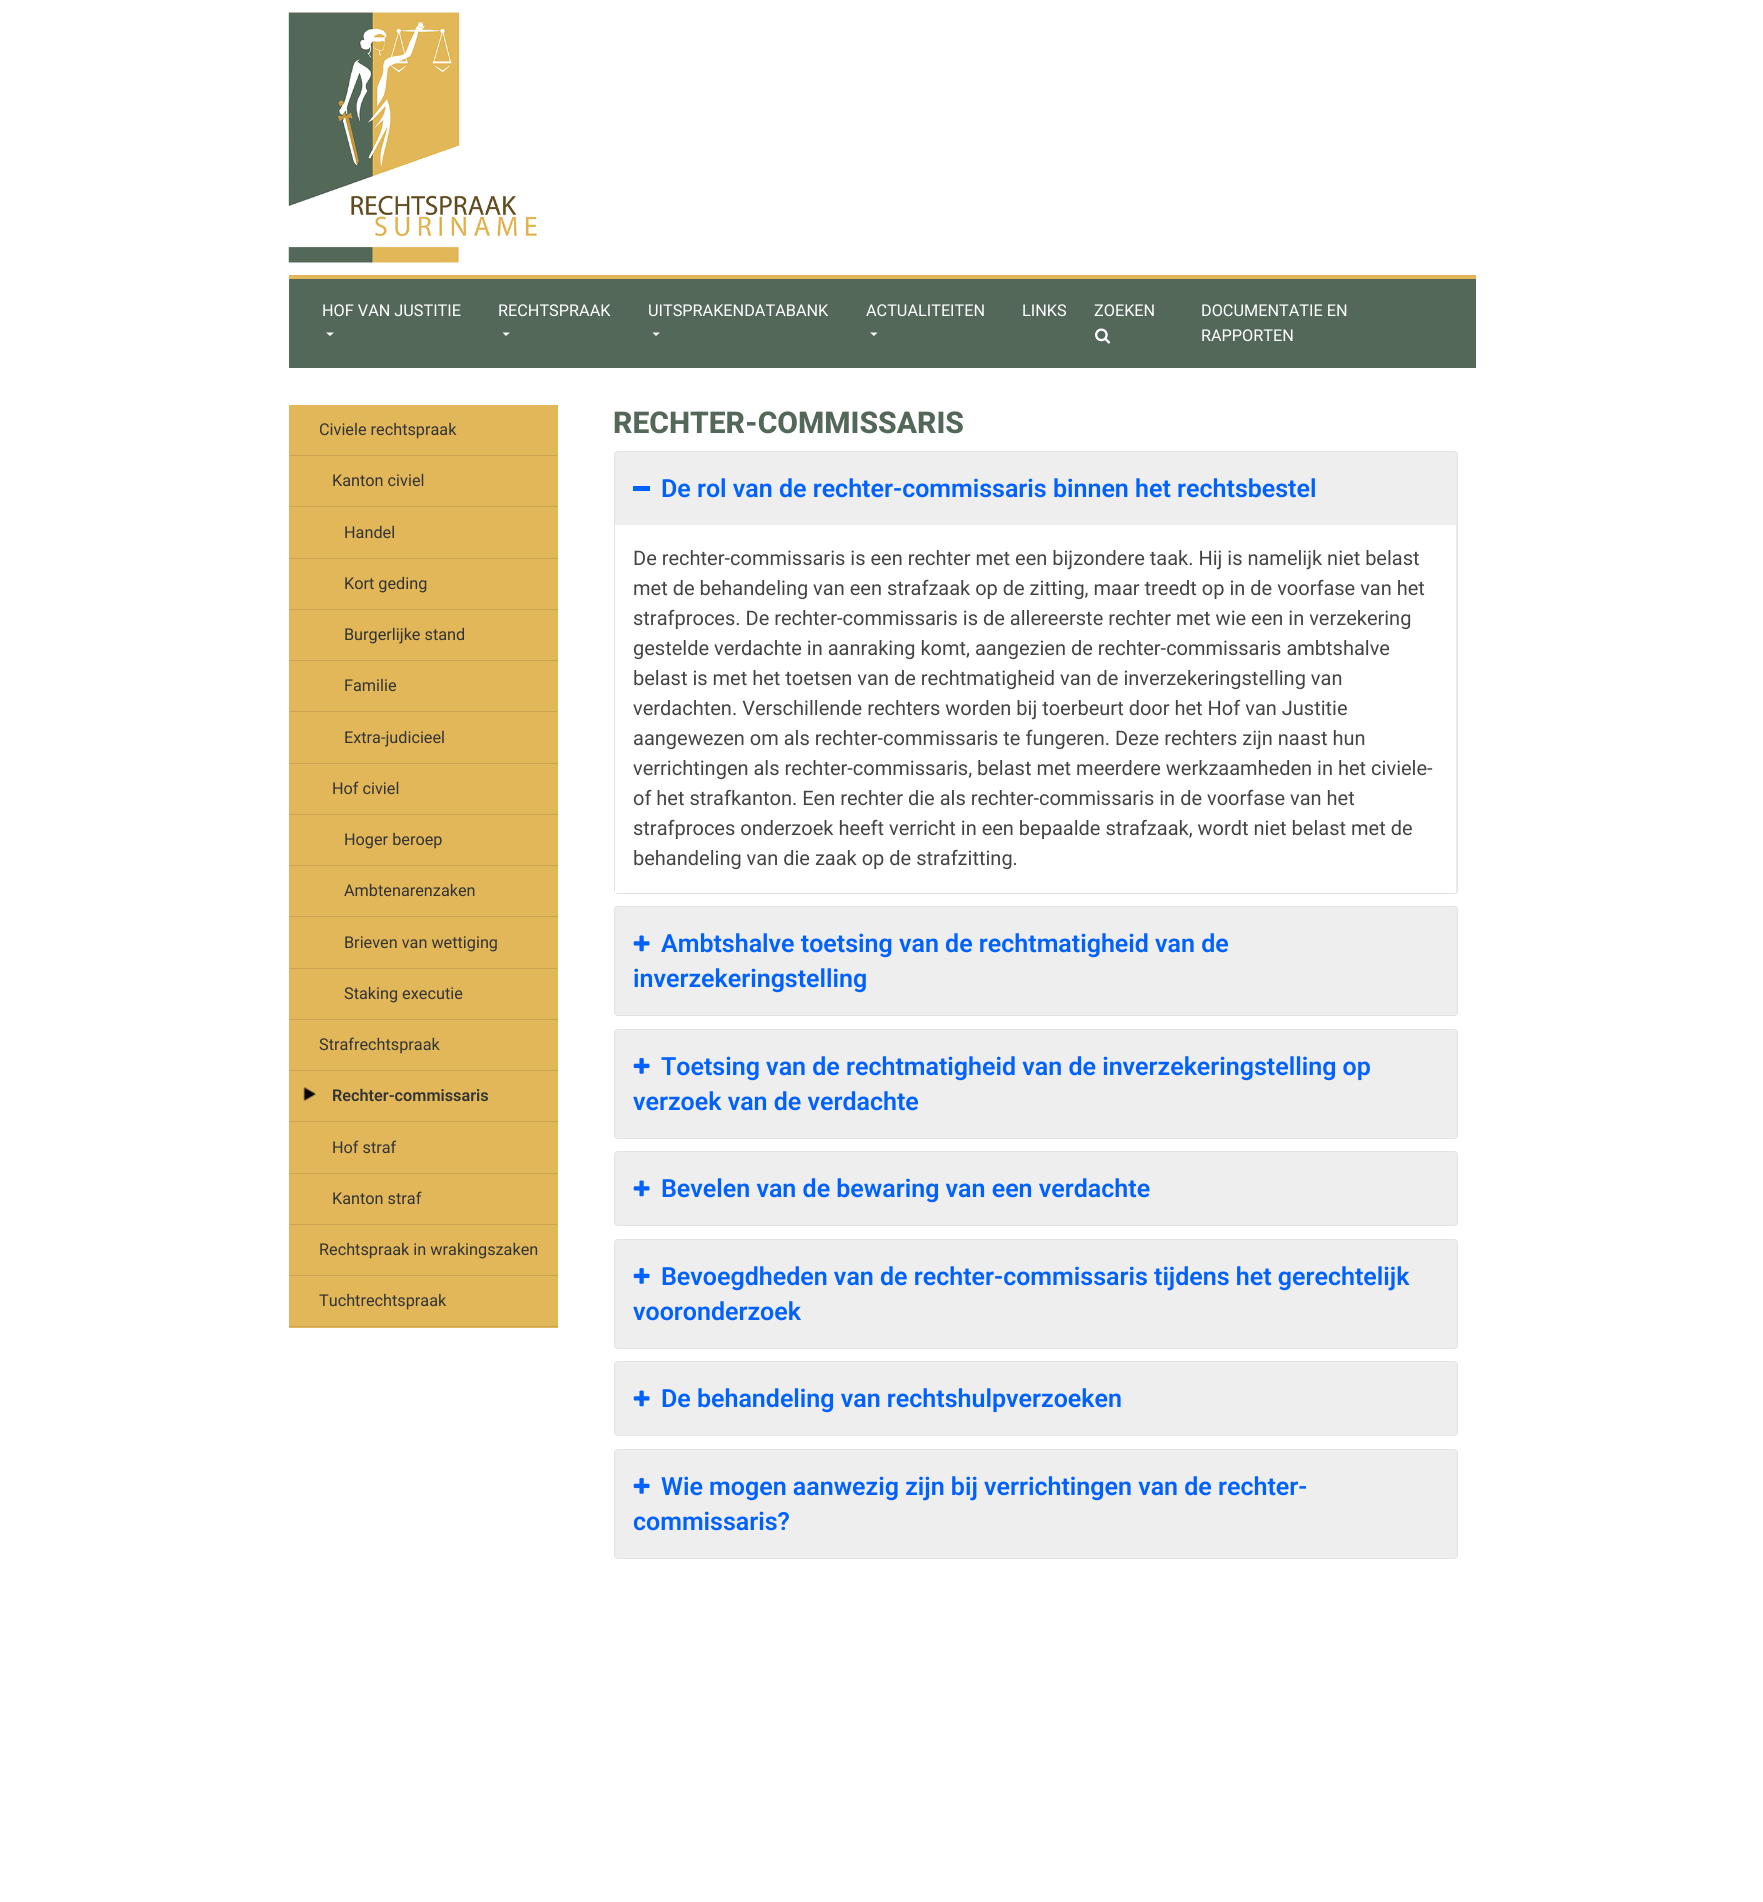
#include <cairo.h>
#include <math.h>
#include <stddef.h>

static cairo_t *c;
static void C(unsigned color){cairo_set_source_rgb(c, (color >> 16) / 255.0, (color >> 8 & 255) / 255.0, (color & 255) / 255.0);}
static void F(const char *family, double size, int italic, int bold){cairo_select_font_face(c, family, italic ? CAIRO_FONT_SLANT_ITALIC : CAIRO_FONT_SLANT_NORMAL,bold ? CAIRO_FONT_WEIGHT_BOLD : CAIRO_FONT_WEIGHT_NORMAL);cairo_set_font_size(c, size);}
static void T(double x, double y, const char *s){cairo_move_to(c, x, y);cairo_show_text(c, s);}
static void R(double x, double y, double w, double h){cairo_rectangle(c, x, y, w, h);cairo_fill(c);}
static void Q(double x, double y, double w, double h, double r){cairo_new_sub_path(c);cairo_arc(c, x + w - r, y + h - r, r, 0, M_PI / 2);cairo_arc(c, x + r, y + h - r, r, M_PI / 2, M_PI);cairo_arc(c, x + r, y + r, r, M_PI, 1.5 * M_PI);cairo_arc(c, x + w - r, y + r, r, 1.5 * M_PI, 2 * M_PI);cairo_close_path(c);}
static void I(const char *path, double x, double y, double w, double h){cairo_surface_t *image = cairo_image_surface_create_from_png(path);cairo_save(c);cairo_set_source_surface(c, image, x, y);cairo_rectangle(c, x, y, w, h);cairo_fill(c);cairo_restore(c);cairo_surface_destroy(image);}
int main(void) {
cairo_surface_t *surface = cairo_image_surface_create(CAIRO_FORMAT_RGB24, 1763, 1902);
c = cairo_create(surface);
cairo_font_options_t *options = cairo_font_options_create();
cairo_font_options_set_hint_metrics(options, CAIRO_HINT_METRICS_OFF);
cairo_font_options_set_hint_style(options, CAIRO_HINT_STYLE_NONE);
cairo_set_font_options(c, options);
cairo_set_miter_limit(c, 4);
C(0xffffff);
cairo_paint(c);
I("1.png",288,12,249,251);
C(0xe2b759);
R(289,275,1187,4);
C(0x546859);
R(289,279,1187,89);
F("Roboto",16.25,0,0);
C(0xffffff);
T(322,316,"HOF VAN JUSTITIE");
cairo_new_path(c);
cairo_move_to(c,326,332.5);
cairo_line_to(c,334,332.5);
cairo_line_to(c,330,336);
cairo_close_path(c);
cairo_fill(c);
T(498,316,"RECHTSPRAAK");
cairo_new_path(c);
cairo_move_to(c,502.5,332.5);
cairo_line_to(c,510,332.5);
cairo_line_to(c,506,336);
cairo_close_path(c);
cairo_fill(c);
T(648,316,"UITSPRAKENDATABANK");
cairo_new_path(c);
cairo_move_to(c,652.5,332.5);
cairo_line_to(c,660,332.5);
cairo_line_to(c,656,336);
cairo_close_path(c);
cairo_fill(c);
T(866,316,"ACTUALITEITEN");
cairo_new_path(c);
cairo_move_to(c,870,332.5);
cairo_line_to(c,877.5,332.5);
cairo_line_to(c,874,336);
cairo_close_path(c);
cairo_fill(c);
T(1022,316,"LINKS");
T(1094,316,"ZOEKEN");
I("2.png",1095,328,16,16);
T(1201,316,"DOCUMENTATIE EN");
T(1201,341,"RAPPORTEN");
C(0xe2b759);
R(289,405,269,923);
C(0xcba44f);
R(289,455,269,1);
C(0x333333);
T(319,435,"Civiele rechtspraak");
C(0xcba44f);
R(289,506,269,1);
C(0x333333);
T(332,486,"Kanton civiel");
C(0xcba44f);
R(289,558,269,1);
C(0x333333);
T(344,538,"Handel");
C(0xcba44f);
R(289,609,269,1);
C(0x333333);
T(344,589,"Kort geding");
C(0xcba44f);
R(289,660,269,1);
C(0x333333);
T(344,640,"Burgerlijke stand");
C(0xcba44f);
R(289,711,269,1);
C(0x333333);
T(344,691,"Familie");
C(0xcba44f);
R(289,763,269,1);
C(0x333333);
T(344,743,"Extra-judicieel");
C(0xcba44f);
R(289,814,269,1);
C(0x333333);
T(332,794,"Hof civiel");
C(0xcba44f);
R(289,865,269,1);
C(0x333333);
T(344,845,"Hoger beroep");
C(0xcba44f);
R(289,916,269,1);
C(0x333333);
T(344,896,"Ambtenarenzaken");
C(0xcba44f);
R(289,968,269,1);
C(0x333333);
T(344,948,"Brieven van wettiging");
C(0xcba44f);
R(289,1019,269,1);
C(0x333333);
T(344,999,"Staking executie");
C(0xcba44f);
R(289,1070,269,1);
C(0x333333);
T(319,1050,"Strafrechtspraak");
I("3.png",303,1087,14,15);
C(0xcba44f);
R(289,1121,269,1);
F("Roboto SemiBold",16.25,0,0);
C(0x333333);
T(332,1101,"Rechter-commissaris");
C(0xcba44f);
R(289,1173,269,1);
F("Roboto",16.25,0,0);
C(0x333333);
T(332,1153,"Hof straf");
C(0xcba44f);
R(289,1224,269,1);
C(0x333333);
T(332,1204,"Kanton straf");
C(0xcba44f);
R(289,1275,269,1);
C(0x333333);
T(319,1255,"Rechtspraak in wrakingszaken");
C(0xcba44f);
R(289,1326,269,1);
C(0x333333);
T(319,1306,"Tuchtrechtspraak");
F("Roboto ExtraBold",30,0,0);
C(0x546859);
T(613,433,"RECHTER-COMMISSARIS");
C(0xeeeeee);
Q(614.5,451.5,843,442,3.5);
cairo_fill_preserve(c);
C(0xe2e2e2);
cairo_set_line_width(c,1);
cairo_stroke(c);
C(0x0061ff);
R(633,486,17,5);
F("Roboto SemiBold",25,0,0);
T(661,497,"De rol van de rechter-commissaris binnen het rechtsbestel");
C(0xffffff);
R(615,525,841,368);
F("Roboto",20,0,0);
C(0x444444);
T(633,565,"De rechter-commissaris is een rechter met een bijzondere taak. Hij is namelijk niet belast");
T(633,595,"met de behandeling van een strafzaak op de zitting, maar treedt op in de voorfase van het");
T(633,625,"strafproces. De rechter-commissaris is de allereerste rechter met wie een in verzekering");
T(633,655,"gestelde verdachte in aanraking komt, aangezien de rechter-commissaris ambtshalve");
T(633,685,"belast is met het toetsen van de rechtmatigheid van de inverzekeringstelling van");
T(633,715,"verdachten. Verschillende rechters worden bij toerbeurt door het Hof van Justitie");
T(633,745,"aangewezen om als rechter-commissaris te fungeren. Deze rechters zijn naast hun");
T(633,775,"verrichtingen als rechter-commissaris, belast met meerdere werkzaamheden in het civiele-");
T(633,805,"of het strafkanton. Een rechter die als rechter-commissaris in de voorfase van het");
T(633,835,"strafproces onderzoek heeft verricht in een bepaalde strafzaak, wordt niet belast met de");
T(633,865,"behandeling van die zaak op de strafzitting.");
C(0xeeeeee);
Q(614.5,906.5,843,109,3.5);
cairo_fill_preserve(c);
C(0xe2e2e2);
cairo_stroke(c);
I("4.png",633,935,17,17);
F("Roboto SemiBold",25,0,0);
C(0x0061ff);
T(661,952,"Ambtshalve toetsing van de rechtmatigheid van de");
T(633,987,"inverzekeringstelling");
C(0xeeeeee);
Q(614.5,1029.5,843,109,3.5);
cairo_fill_preserve(c);
C(0xe2e2e2);
cairo_stroke(c);
I("5.png",633,1058,17,16);
C(0x0061ff);
T(661,1075,"Toetsing van de rechtmatigheid van de inverzekeringstelling op");
T(633,1110,"verzoek van de verdachte");
C(0xeeeeee);
Q(614.5,1151.5,843,74,3.5);
cairo_fill_preserve(c);
C(0xe2e2e2);
cairo_stroke(c);
I("4.png",633,1180,17,17);
C(0x0061ff);
T(661,1197,"Bevelen van de bewaring van een verdachte");
C(0xeeeeee);
Q(614.5,1239.5,843,109,3.5);
cairo_fill_preserve(c);
C(0xe2e2e2);
cairo_stroke(c);
I("5.png",633,1268,17,16);
C(0x0061ff);
T(661,1285,"Bevoegdheden van de rechter-commissaris tijdens het gerechtelijk");
T(633,1320,"vooronderzoek");
C(0xeeeeee);
Q(614.5,1361.5,843,74,3.5);
cairo_fill_preserve(c);
C(0xe2e2e2);
cairo_stroke(c);
I("4.png",633,1390,17,17);
C(0x0061ff);
T(661,1407,"De behandeling van rechtshulpverzoeken");
C(0xeeeeee);
Q(614.5,1449.5,843,109,3.5);
cairo_fill_preserve(c);
C(0xe2e2e2);
cairo_stroke(c);
I("5.png",633,1478,17,16);
C(0x0061ff);
T(661,1495,"Wie mogen aanwezig zijn bij verrichtingen van de rechter-");
T(633,1530,"commissaris?");
cairo_surface_write_to_png(surface, "o.png");
cairo_font_options_destroy(options);
cairo_destroy(c);
cairo_surface_destroy(surface);
return 0;
}
